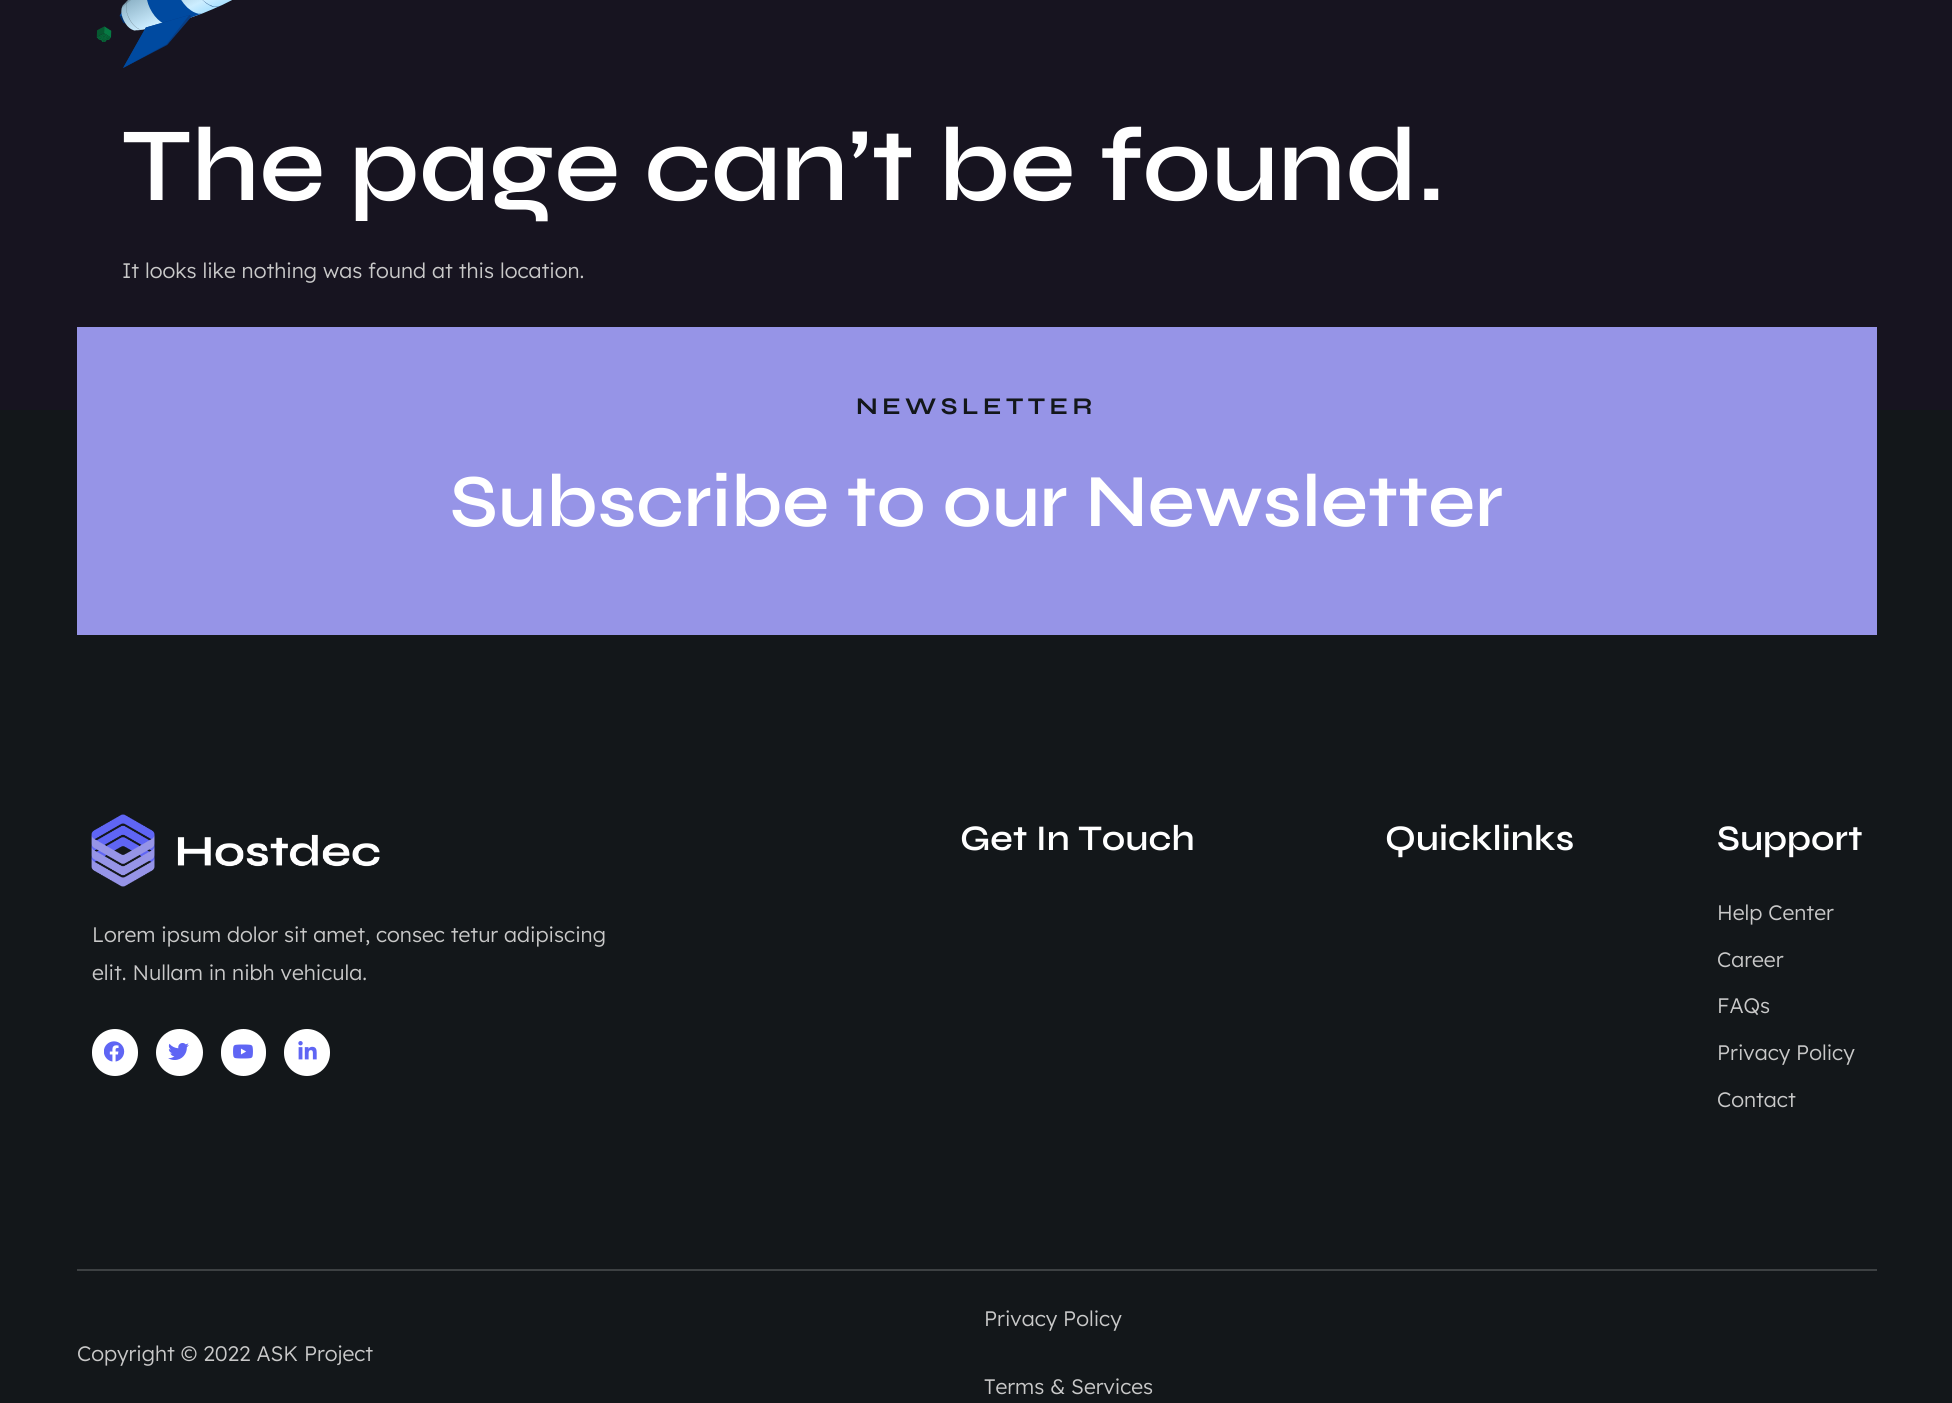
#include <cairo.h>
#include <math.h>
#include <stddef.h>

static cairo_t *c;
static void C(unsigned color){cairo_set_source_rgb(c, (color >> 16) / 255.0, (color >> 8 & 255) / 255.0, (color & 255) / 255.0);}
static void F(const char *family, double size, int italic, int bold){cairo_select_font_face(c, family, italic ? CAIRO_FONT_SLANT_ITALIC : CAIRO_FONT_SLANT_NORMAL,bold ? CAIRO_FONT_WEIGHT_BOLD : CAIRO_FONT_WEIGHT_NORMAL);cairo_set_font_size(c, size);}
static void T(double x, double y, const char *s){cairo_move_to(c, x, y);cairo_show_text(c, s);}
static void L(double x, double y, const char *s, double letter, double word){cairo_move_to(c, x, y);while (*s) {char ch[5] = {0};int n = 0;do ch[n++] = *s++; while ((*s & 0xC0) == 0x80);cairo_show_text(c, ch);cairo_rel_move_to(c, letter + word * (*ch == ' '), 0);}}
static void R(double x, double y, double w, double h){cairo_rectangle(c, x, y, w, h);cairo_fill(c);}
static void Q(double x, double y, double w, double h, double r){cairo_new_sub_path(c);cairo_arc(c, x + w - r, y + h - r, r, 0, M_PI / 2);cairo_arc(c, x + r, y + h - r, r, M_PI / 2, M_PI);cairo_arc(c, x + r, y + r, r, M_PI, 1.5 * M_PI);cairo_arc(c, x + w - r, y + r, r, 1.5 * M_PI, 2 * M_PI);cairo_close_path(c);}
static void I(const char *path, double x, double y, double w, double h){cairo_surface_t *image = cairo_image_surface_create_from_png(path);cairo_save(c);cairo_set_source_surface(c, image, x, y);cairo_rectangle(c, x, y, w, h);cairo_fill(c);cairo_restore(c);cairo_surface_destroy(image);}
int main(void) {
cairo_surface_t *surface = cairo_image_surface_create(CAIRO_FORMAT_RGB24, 1952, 1403);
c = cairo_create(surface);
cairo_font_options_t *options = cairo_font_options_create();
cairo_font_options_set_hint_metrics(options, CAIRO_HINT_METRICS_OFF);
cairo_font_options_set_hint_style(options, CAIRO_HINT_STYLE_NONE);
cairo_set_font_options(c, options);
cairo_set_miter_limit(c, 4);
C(0x171420);
cairo_paint(c);
I("1.png",96,0,136,68);
F("Syne SemiBold",105,0,0);
C(0xffffff);
T(122,200,"The page can’t be found.");
F("Lexend Light",21,0,0);
C(0xc9c9c9);
T(122,278,"It looks like nothing was found at this location.");
C(0x13171a);
R(0,410,1952,993);
C(0x9694e7);
R(77,327,1800,308);
F("Syne",24,0,1);
C(0x13171a);
L(856,414,"NEWSLETTER",4.5,0);
F("Syne SemiBold",75,0,0);
C(0xffffff);
T(450,526,"Subscribe to our Newsletter");
I("2.png",91,814,289,73);
F("Lexend Light",21,0,0);
C(0xc9c9c9);
T(92,942,"Lorem ipsum dolor sit amet, consec tetur adipiscing");
T(92,980,"elit. Nullam in nibh vehicula.");
C(0xffffff);
Q(92,1029,46,47,23);
cairo_fill(c);
I("3.png",104,1041,21,21);
cairo_arc(c,179.5,1052.5,23.5,0,2 * M_PI);
cairo_fill(c);
I("4.png",168,1043,21,17);
Q(221,1029,45,47,22.5);
cairo_fill(c);
I("5.png",233,1044,20,15);
Q(284,1029,46,47,23);
cairo_fill(c);
I("6.png",298,1041,19,19);
F("Syne SemiBold",36,0,0);
T(960,850,"Get In Touch");
T(1385,850,"Quicklinks");
T(1717,850,"Support");
F("Lexend Light",21,0,0);
C(0xc9c9c9);
T(1717,920,"Help Center");
T(1717,967,"Career");
T(1717,1013,"FAQs");
T(1717,1060,"Privacy Policy");
T(1717,1107,"Contact");
C(0x3d4143);
R(77,1269,1800,2);
C(0xc9c9c9);
T(77,1361,"Copyright © 2022 ASK Project");
T(984,1326,"Privacy Policy");
T(984,1394,"Terms & Services");
cairo_surface_write_to_png(surface, "o.png");
cairo_font_options_destroy(options);
cairo_destroy(c);
cairo_surface_destroy(surface);
return 0;
}
